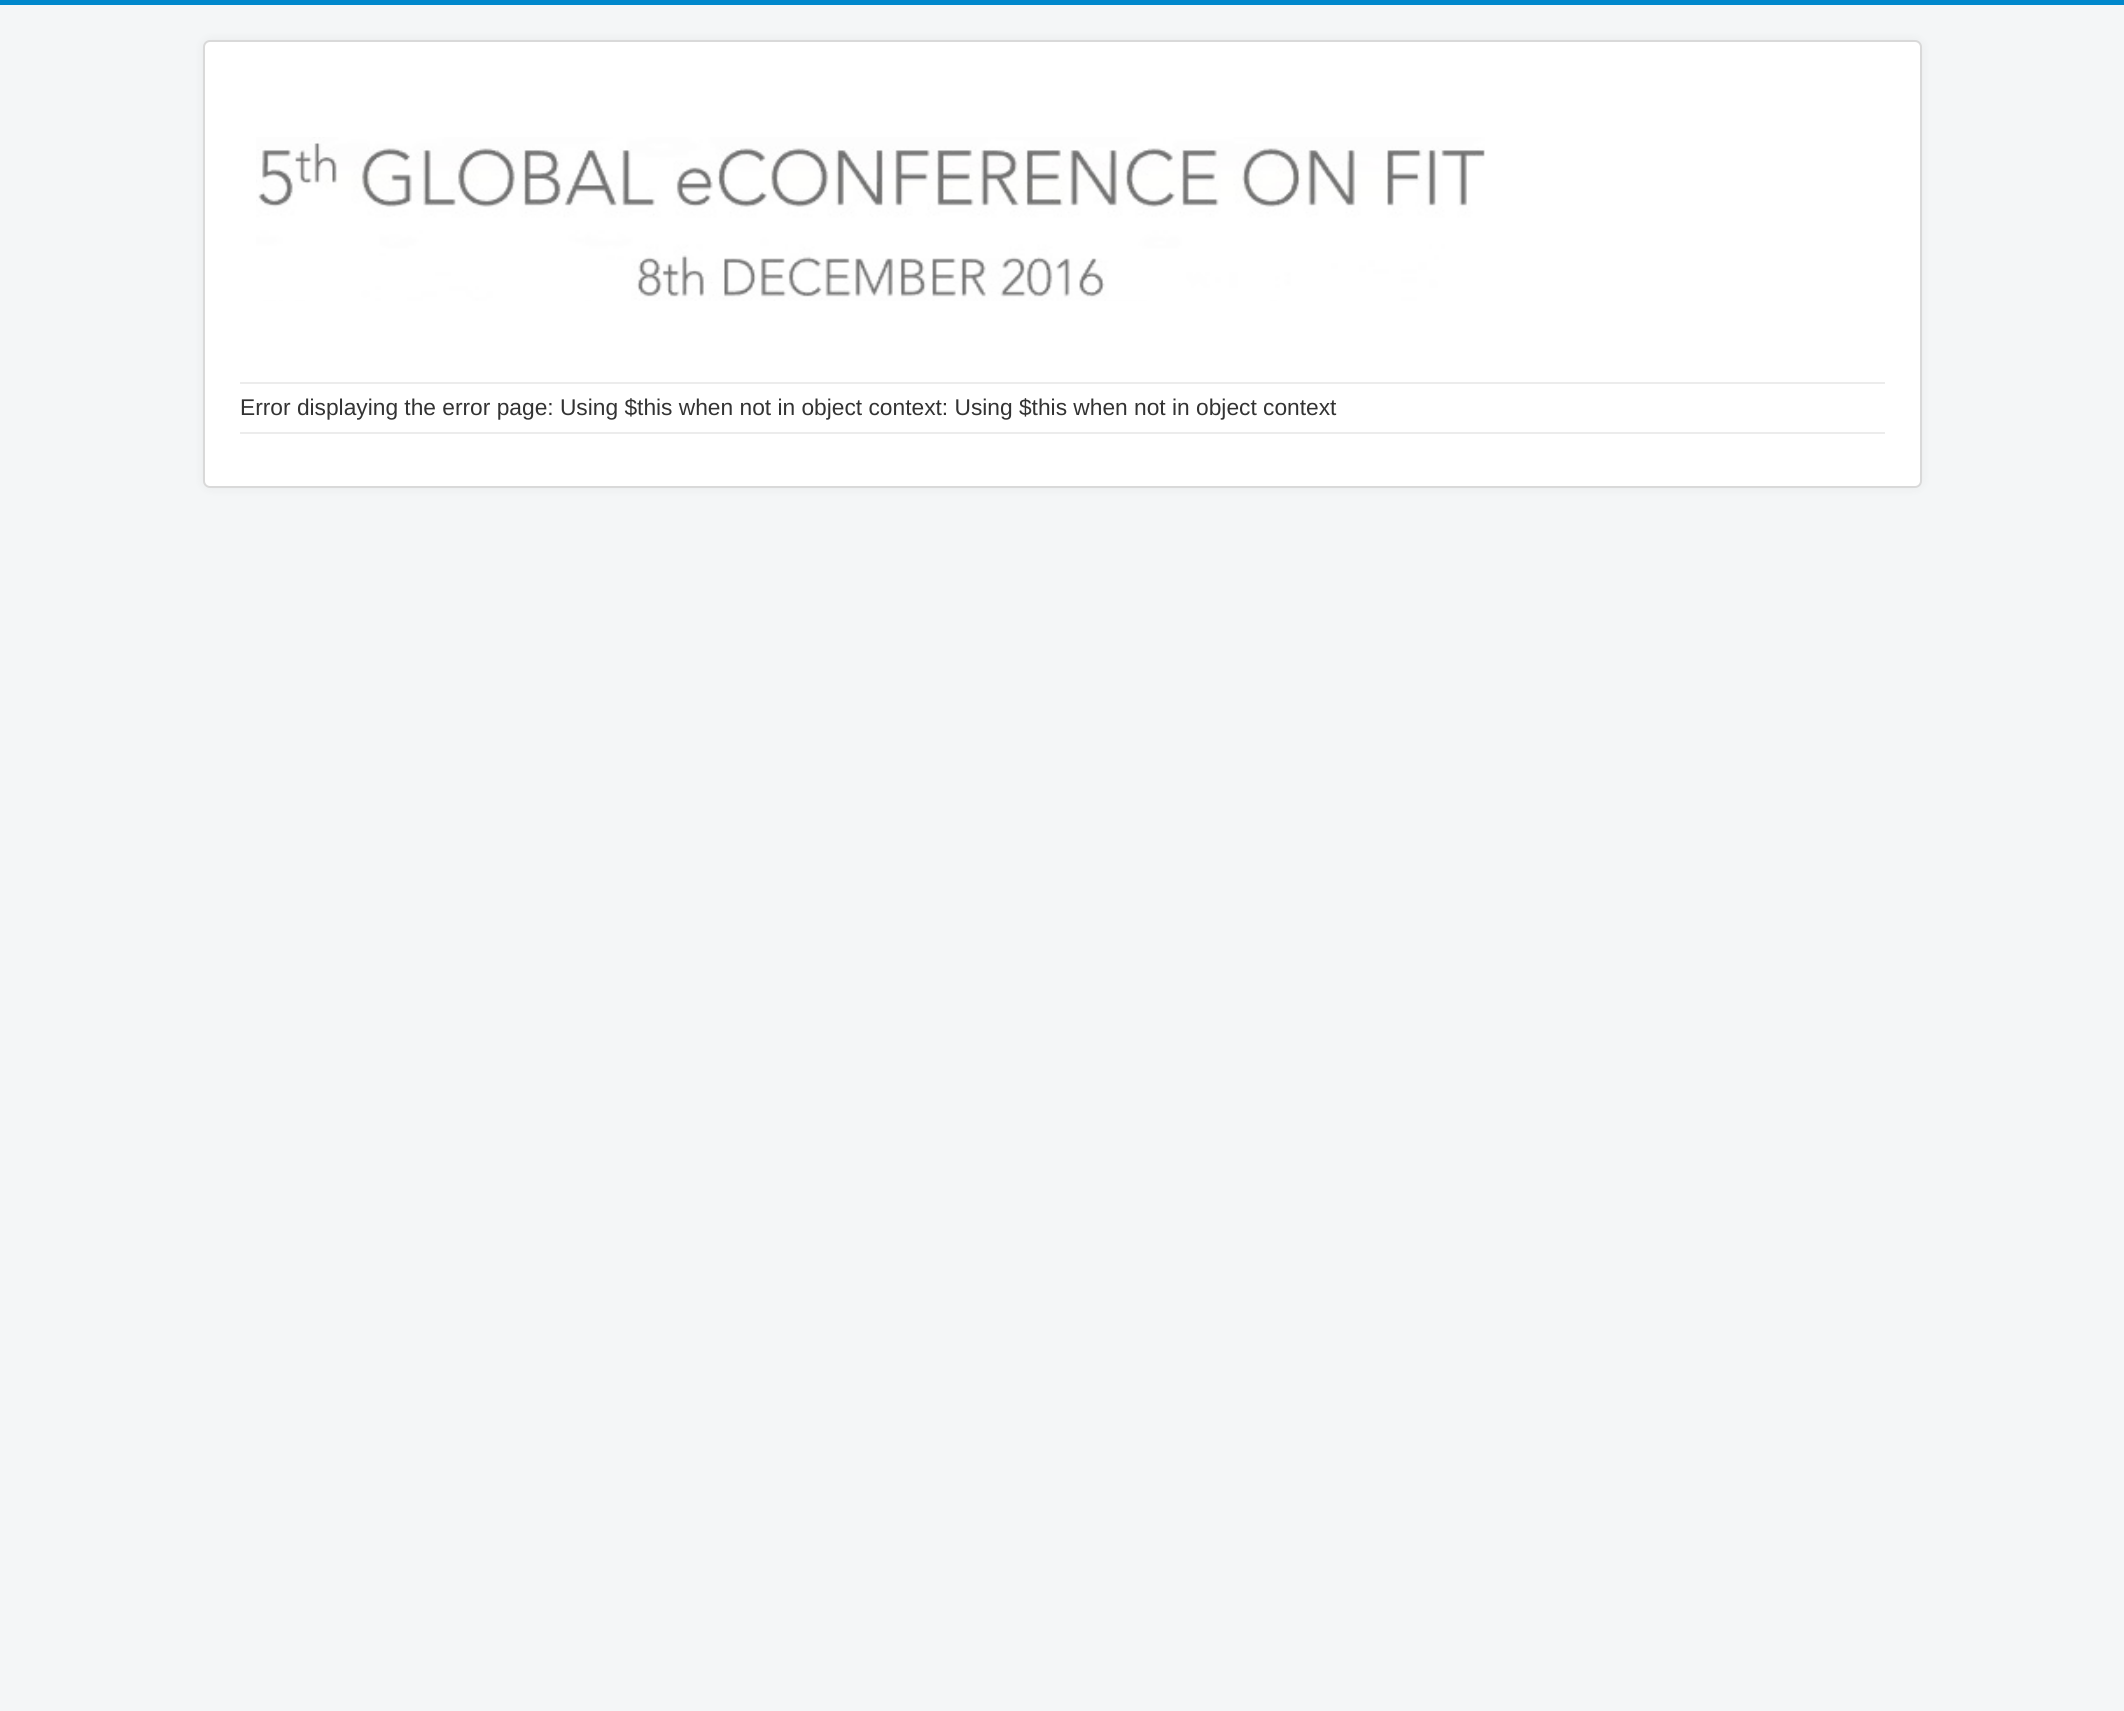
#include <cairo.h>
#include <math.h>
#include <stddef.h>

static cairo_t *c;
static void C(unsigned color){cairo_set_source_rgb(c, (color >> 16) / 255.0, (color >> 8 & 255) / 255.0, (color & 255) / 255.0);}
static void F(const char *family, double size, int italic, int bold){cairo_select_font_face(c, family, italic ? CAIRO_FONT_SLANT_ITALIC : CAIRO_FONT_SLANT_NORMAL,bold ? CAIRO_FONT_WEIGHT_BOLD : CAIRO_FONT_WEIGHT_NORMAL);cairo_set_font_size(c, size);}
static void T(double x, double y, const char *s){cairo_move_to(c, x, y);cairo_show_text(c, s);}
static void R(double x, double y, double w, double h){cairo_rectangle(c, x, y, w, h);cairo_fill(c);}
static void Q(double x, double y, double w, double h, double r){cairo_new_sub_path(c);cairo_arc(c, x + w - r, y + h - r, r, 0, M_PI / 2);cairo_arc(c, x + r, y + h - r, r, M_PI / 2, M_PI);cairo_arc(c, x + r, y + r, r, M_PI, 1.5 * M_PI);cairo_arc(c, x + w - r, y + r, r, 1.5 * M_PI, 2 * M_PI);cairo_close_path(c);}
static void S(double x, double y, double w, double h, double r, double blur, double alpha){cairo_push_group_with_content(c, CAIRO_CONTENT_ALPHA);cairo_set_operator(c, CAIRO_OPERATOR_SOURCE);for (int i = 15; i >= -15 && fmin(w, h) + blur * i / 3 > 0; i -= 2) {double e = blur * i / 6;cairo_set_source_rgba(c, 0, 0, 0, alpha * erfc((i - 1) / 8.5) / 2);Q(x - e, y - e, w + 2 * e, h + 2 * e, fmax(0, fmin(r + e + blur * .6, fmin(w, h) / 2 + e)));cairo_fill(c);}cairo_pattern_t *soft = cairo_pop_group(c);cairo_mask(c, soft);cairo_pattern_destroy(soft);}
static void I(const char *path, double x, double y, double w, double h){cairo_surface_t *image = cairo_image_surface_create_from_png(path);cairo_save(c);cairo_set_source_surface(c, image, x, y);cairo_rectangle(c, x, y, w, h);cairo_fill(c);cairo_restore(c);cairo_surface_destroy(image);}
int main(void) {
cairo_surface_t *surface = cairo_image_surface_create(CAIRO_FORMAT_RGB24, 2124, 1711);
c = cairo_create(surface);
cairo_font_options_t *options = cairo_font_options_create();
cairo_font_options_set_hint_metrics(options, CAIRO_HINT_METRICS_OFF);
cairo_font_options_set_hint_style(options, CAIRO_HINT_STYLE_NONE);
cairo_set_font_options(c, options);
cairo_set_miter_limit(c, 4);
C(0xf4f6f7);
cairo_paint(c);
C(0x0088cc);
R(0,0,2124,5);
C(0x000000);
S(203,40,1719,448,7,5,.05);
C(0xffffff);
Q(203,40,1719,448,7);
cairo_fill(c);
Q(204,41,1717,446,6);
cairo_set_source_rgba(c,0,0,0,0.15);
cairo_stroke(c);
I("1.png",256,137,1229,164);
C(0xececec);
R(240,382,1645,2);
R(240,432,1645,2);
F("Liberation Sans",22.75,0,0);
C(0x333333);
T(240,415,"Error displaying the error page: Using $this when not in object context: Using $this when not in object context");
cairo_surface_write_to_png(surface, "o.png");
cairo_font_options_destroy(options);
cairo_destroy(c);
cairo_surface_destroy(surface);
return 0;
}
